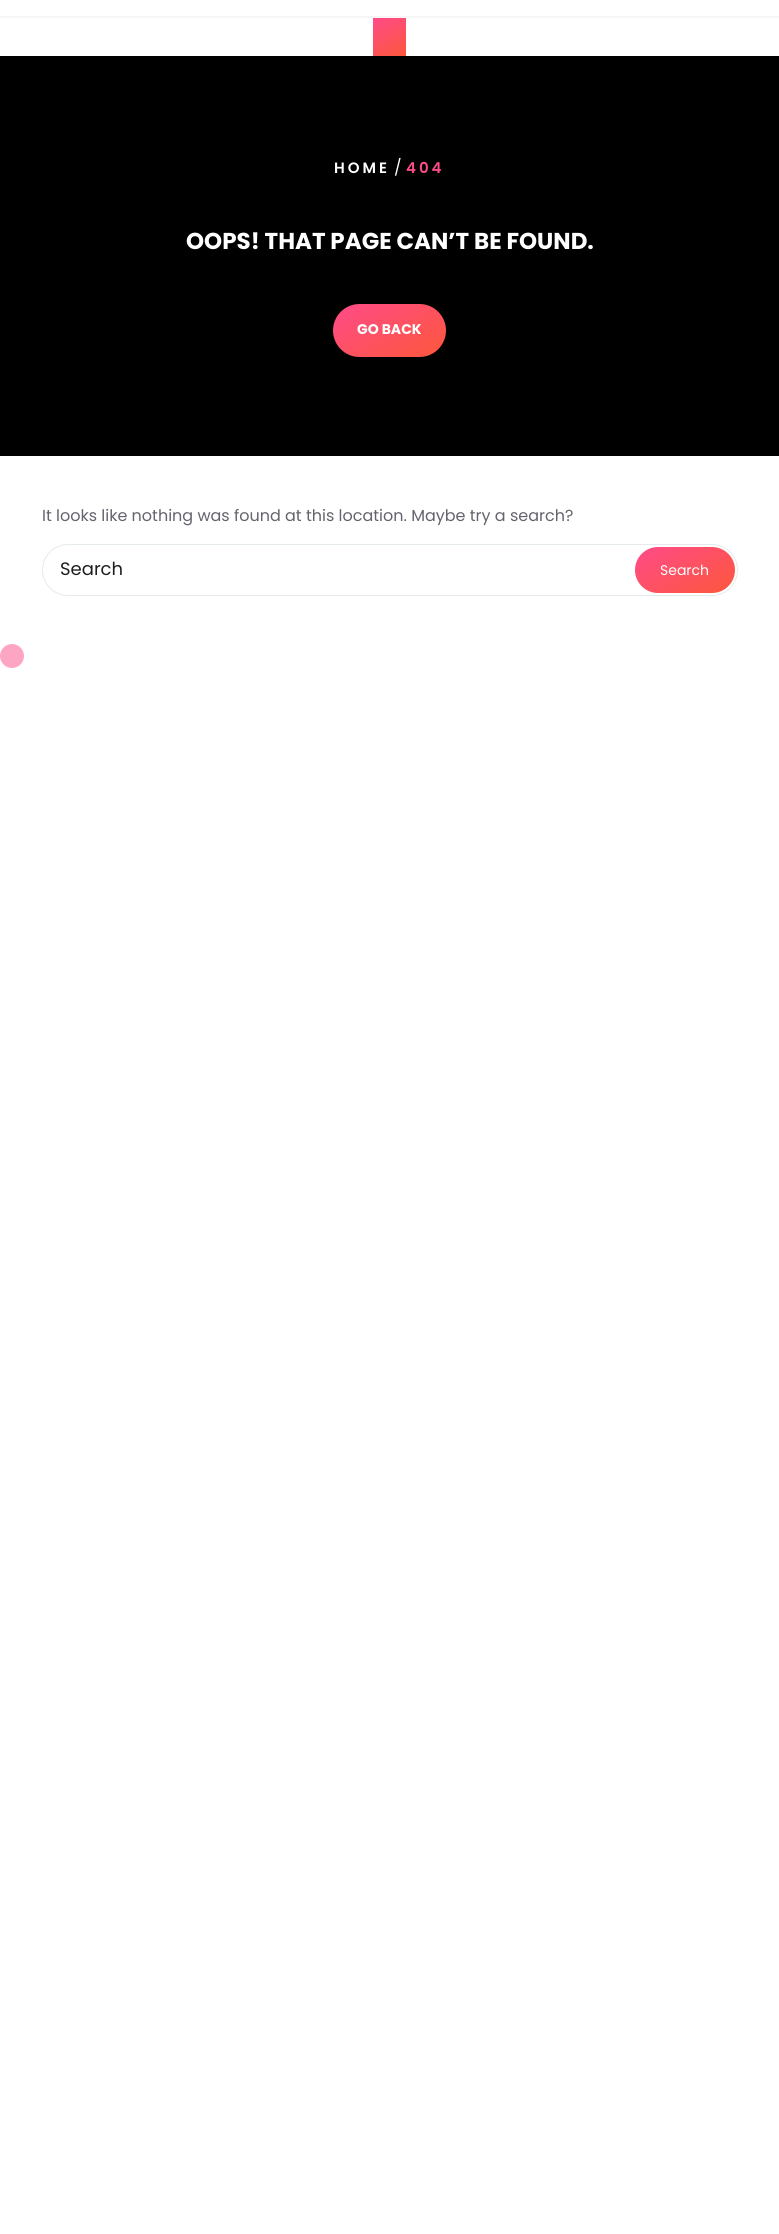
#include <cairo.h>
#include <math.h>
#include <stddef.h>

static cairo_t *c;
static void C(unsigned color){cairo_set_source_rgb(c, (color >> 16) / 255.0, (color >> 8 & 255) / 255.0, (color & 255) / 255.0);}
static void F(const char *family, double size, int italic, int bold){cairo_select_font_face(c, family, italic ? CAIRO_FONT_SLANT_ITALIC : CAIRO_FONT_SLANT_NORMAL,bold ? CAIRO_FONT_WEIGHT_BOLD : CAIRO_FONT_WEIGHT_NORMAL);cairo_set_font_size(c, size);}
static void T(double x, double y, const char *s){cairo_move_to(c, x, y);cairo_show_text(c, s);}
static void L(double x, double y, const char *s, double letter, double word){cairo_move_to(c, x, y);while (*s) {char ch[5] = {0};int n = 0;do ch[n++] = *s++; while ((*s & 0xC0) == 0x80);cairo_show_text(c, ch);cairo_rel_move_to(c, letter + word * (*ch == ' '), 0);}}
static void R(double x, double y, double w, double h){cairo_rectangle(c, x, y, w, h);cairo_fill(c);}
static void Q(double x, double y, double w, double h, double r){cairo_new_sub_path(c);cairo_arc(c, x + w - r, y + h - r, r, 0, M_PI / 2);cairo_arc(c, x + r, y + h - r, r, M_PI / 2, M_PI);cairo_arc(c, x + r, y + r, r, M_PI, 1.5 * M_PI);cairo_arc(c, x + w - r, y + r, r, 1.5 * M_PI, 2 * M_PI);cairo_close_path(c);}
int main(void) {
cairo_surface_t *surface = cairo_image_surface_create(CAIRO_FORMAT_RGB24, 779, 2234);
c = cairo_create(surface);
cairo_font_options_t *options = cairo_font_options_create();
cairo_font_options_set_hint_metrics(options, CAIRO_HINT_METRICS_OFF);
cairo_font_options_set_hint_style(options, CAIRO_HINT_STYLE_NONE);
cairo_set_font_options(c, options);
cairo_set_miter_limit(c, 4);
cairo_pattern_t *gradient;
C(0xffffff);
cairo_paint(c);
C(0xf6f6f6);
R(0,16,779,2);
gradient = cairo_pattern_create_linear(378,15,401,59);
cairo_pattern_add_color_stop_rgba(gradient,0,1,0.294,0.537,1);
cairo_pattern_add_color_stop_rgba(gradient,1,0.992,0.341,0.231,1);
cairo_set_source(c,gradient);
cairo_pattern_destroy(gradient);
R(373,18,33,38);
C(0x000000);
R(0,56,779,400);
F("Poppins SemiBold",15,0,0);
C(0xffffff);
L(334,173,"HOME",3,0);
F("Poppins",16,0,0);
T(394,173,"/");
F("Poppins SemiBold",15,0,0);
C(0xff4b89);
L(406,173,"404",3,0);
F("Poppins",23,0,1);
C(0xffffff);
T(186,249,"OOPS! THAT PAGE CAN’T BE FOUND.");
gradient = cairo_pattern_create_linear(365,286,414,374);
cairo_pattern_add_color_stop_rgba(gradient,0,1,0.294,0.537,1);
cairo_pattern_add_color_stop_rgba(gradient,1,0.992,0.341,0.231,1);
cairo_set_source(c,gradient);
cairo_pattern_destroy(gradient);
Q(333,304,113,53,26.5);
cairo_fill(c);
F("Poppins",14,0,1);
C(0xffffff);
T(357,334,"GO BACK");
F("Poppins",16,0,0);
C(0x63646d);
T(42,521,"It looks like nothing was found at this location. Maybe try a search?");
Q(42.5,544.5,695,51,25.5);
C(0xe5eaec);
cairo_set_line_width(c,1);
cairo_stroke(c);
F("Poppins",18,0,0);
C(0x1e1e1e);
T(60,575,"Search");
gradient = cairo_pattern_create_linear(663,531,707,609);
cairo_pattern_add_color_stop_rgba(gradient,0,1,0.294,0.537,1);
cairo_pattern_add_color_stop_rgba(gradient,1,0.992,0.341,0.231,1);
cairo_set_source(c,gradient);
cairo_pattern_destroy(gradient);
Q(635,547,100,46,23);
cairo_fill(c);
F("Poppins",14,0,0);
C(0xffffff);
T(660,575,"Search");
C(0xffa5c4);
cairo_new_path(c);
cairo_arc(c,12,656,12,0,2 * M_PI);
cairo_fill(c);
cairo_surface_write_to_png(surface, "o.png");
cairo_font_options_destroy(options);
cairo_destroy(c);
cairo_surface_destroy(surface);
return 0;
}
